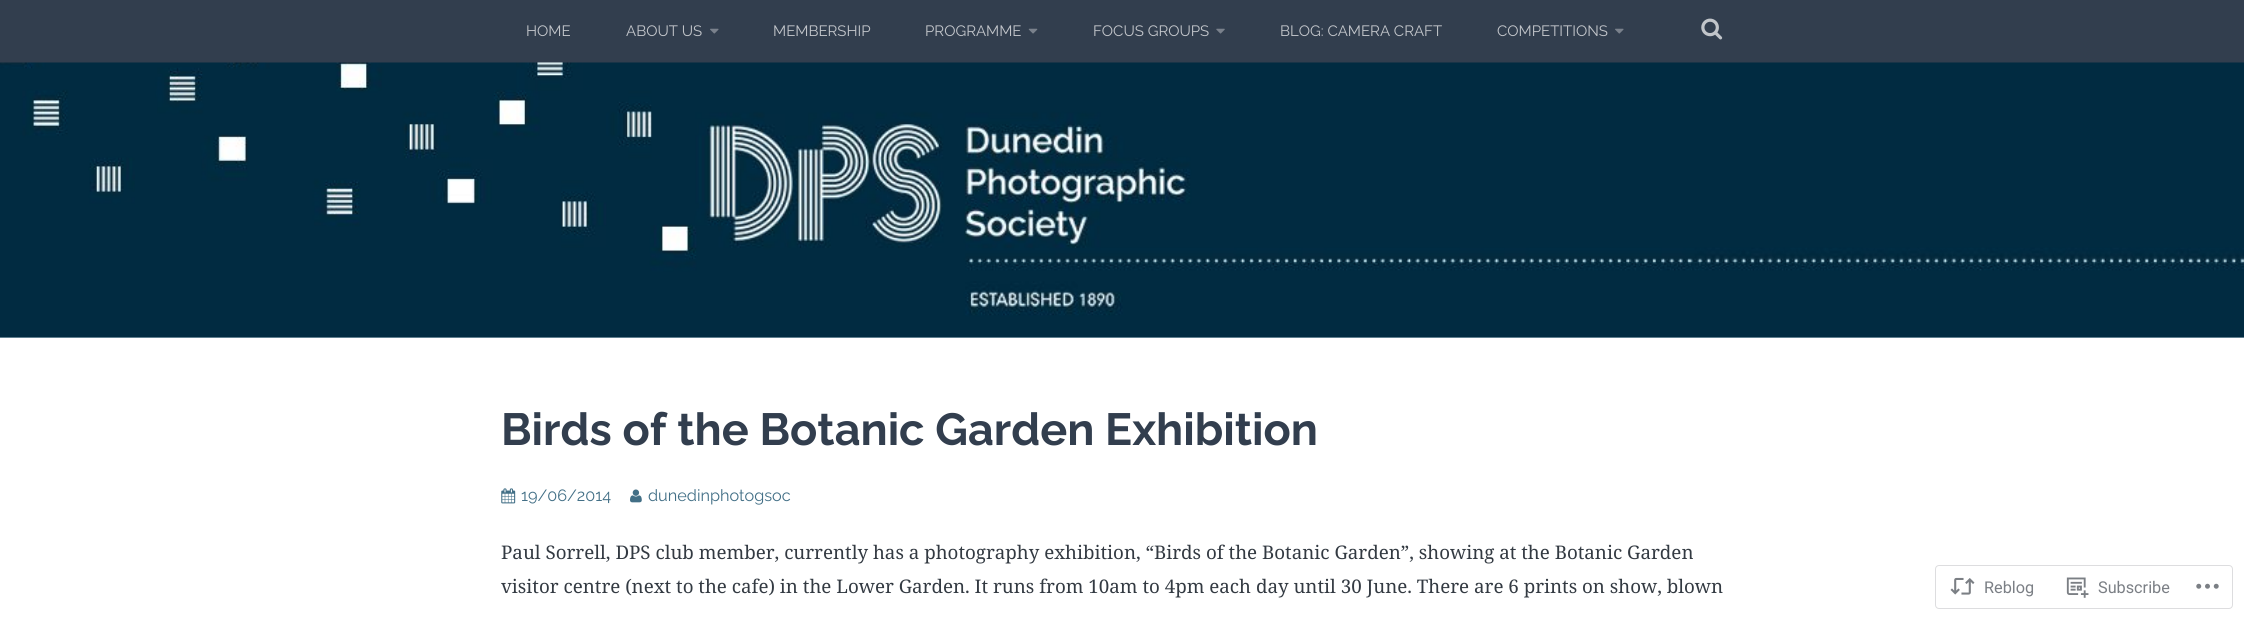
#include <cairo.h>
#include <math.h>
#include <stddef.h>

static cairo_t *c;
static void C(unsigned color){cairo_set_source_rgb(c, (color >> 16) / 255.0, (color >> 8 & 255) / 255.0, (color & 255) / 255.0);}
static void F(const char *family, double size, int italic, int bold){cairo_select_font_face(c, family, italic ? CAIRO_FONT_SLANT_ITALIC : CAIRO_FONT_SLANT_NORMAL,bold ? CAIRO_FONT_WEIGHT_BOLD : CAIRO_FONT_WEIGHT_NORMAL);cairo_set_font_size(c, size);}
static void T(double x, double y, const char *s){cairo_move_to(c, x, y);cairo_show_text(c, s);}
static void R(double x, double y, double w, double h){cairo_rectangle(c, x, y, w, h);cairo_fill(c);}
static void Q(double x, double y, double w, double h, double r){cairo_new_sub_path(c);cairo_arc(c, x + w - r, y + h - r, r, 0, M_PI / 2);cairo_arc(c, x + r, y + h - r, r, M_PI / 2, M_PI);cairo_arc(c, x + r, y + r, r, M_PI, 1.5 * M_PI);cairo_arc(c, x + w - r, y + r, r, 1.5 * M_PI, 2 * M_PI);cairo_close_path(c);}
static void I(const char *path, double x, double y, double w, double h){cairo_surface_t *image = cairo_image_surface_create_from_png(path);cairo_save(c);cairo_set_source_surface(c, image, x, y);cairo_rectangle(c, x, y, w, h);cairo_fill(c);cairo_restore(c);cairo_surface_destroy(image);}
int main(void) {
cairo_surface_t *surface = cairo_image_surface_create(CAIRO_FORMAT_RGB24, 2244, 621);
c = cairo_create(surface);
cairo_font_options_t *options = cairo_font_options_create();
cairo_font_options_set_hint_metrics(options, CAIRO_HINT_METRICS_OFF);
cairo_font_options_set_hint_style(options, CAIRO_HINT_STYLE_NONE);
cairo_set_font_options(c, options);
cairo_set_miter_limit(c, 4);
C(0xffffff);
cairo_paint(c);
C(0x323e4e);
R(0,0,2244,63);
F("Raleway",15,0,0);
C(0xc2c5ca);
T(526,36,"HOME");
T(626,36,"ABOUT US");
I("1.png",710,28,9,6);
T(773,36,"MEMBERSHIP");
T(925,36,"PROGRAMME");
I("2.png",1028,28,10,6);
T(1093,36,"FOCUS GROUPS");
I("3.png",1216,28,9,6);
T(1280,36,"BLOG: CAMERA CRAFT");
T(1497,36,"COMPETITIONS");
I("1.png",1615,28,9,6);
I("4.png",1701,18,22,22);
C(0xbed4df);
R(0,337,2244,1);
I("5.png",0,62,2244,276);
F("Raleway",45,0,1);
C(0x323e4e);
T(501,445,"Birds of the Botanic Garden Exhibition");
I("6.png",501,488,15,16);
F("Raleway",16.25,0,0);
C(0x426f86);
T(521,501,"19/06/2014");
I("7.png",630,489,12,14);
T(648,501,"dunedinphotogsoc");
F("Noto Serif",18.75,0,0);
C(0x333a42);
T(501,559,"Paul Sorrell, DPS club member, currently has a photography exhibition, “Birds of the Botanic Garden”, showing at the Botanic Garden");
T(501,593,"visitor centre (next to the cafe) in the Lower Garden. It runs from 10am to 4pm each day until 30 June. There are 6 prints on show, blown");
Q(1935.5,565.5,297,43,3.5);
C(0xdddddf);
cairo_set_line_width(c,1);
cairo_stroke(c);
I("8.png",1950,577,25,18);
F("Roboto",16.25,0,0);
C(0x7b7f85);
T(1984,593,"Reblog");
I("9.png",2066,577,23,21);
T(2098,593,"Subscribe");
I("10.png",2196,583,23,6);
cairo_surface_write_to_png(surface, "o.png");
cairo_font_options_destroy(options);
cairo_destroy(c);
cairo_surface_destroy(surface);
return 0;
}
